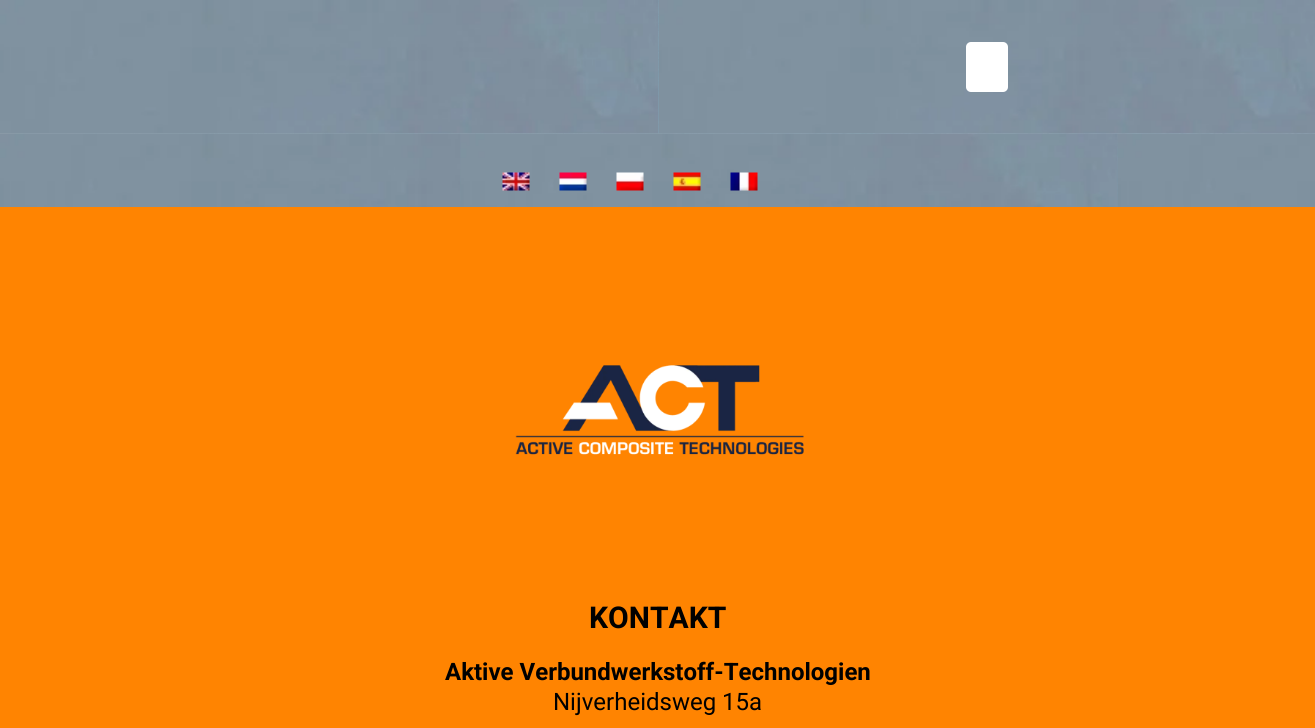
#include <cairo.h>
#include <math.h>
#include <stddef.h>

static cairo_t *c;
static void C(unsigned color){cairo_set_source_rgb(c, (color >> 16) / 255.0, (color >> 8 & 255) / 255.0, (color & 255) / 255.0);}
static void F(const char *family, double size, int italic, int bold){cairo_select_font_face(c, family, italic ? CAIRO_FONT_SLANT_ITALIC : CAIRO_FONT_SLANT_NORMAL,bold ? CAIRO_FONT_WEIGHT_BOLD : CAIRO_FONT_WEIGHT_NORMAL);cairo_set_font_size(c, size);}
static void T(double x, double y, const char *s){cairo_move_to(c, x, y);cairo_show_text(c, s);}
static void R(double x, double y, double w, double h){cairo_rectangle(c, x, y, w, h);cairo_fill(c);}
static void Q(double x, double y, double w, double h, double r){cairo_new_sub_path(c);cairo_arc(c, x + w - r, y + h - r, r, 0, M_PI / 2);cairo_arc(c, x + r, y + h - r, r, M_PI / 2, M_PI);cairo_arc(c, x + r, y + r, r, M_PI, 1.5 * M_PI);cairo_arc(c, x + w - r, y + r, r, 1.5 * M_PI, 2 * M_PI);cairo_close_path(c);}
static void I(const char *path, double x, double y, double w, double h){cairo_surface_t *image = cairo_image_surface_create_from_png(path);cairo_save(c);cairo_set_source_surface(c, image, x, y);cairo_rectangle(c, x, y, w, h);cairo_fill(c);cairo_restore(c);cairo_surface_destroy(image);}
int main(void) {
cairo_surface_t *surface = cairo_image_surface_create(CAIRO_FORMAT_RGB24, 1315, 728);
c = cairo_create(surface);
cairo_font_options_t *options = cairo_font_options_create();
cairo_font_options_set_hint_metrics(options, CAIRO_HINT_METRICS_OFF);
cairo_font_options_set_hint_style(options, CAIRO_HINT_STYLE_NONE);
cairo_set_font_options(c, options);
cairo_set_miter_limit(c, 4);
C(0xffffff);
cairo_paint(c);
I("1.png",0,0,1315,134);
I("2.png",0,0,659,134);
I("3.png",658,0,657,134);
C(0xffffff);
Q(966,42,42,50,5);
cairo_fill(c);
I("4.png",0,133,1315,74);
I("5.png",0,133,461,74);
I("6.png",460,133,658,74);
I("7.png",502,172,28,19);
I("8.png",559,172,28,19);
I("9.png",616,172,28,19);
I("10.png",673,172,28,19);
I("11.png",730,172,28,19);
I("12.png",1117,133,198,74);
C(0xff8401);
R(0,207,1315,521);
I("13.png",515,365,289,90);
F("Roboto",30,0,1);
C(0x000000);
T(589,628,"KONTAKT");
F("Roboto",24,0,1);
T(445,680,"Aktive Verbundwerkstoff-Technologien");
F("Roboto",24,0,0);
T(553,710,"Nijverheidsweg 15a");
cairo_surface_write_to_png(surface, "o.png");
cairo_font_options_destroy(options);
cairo_destroy(c);
cairo_surface_destroy(surface);
return 0;
}
